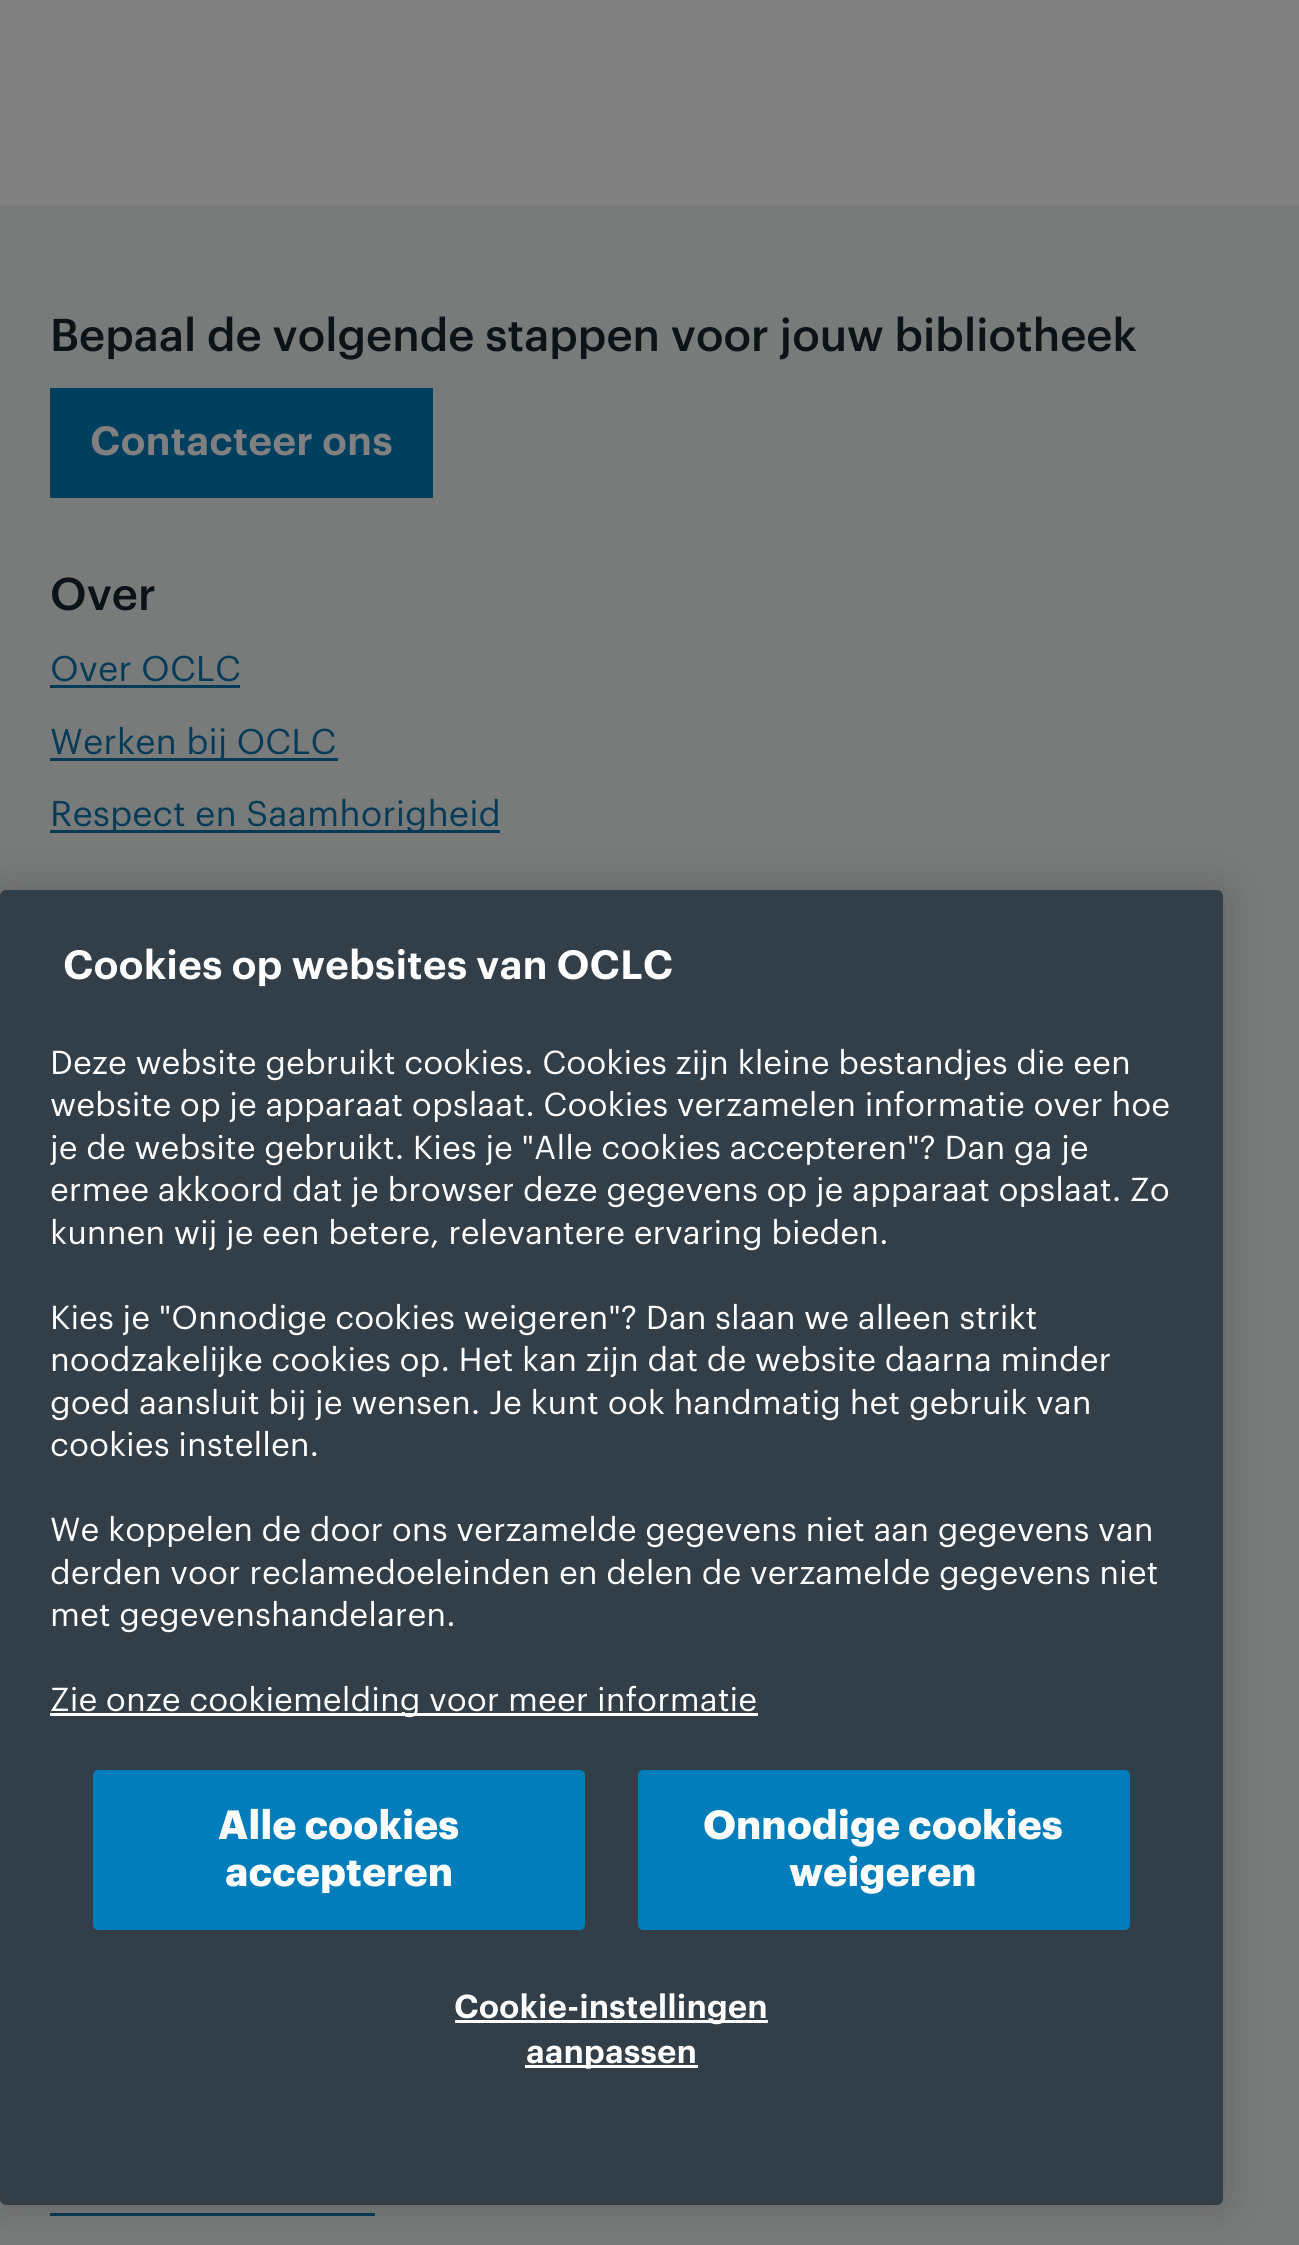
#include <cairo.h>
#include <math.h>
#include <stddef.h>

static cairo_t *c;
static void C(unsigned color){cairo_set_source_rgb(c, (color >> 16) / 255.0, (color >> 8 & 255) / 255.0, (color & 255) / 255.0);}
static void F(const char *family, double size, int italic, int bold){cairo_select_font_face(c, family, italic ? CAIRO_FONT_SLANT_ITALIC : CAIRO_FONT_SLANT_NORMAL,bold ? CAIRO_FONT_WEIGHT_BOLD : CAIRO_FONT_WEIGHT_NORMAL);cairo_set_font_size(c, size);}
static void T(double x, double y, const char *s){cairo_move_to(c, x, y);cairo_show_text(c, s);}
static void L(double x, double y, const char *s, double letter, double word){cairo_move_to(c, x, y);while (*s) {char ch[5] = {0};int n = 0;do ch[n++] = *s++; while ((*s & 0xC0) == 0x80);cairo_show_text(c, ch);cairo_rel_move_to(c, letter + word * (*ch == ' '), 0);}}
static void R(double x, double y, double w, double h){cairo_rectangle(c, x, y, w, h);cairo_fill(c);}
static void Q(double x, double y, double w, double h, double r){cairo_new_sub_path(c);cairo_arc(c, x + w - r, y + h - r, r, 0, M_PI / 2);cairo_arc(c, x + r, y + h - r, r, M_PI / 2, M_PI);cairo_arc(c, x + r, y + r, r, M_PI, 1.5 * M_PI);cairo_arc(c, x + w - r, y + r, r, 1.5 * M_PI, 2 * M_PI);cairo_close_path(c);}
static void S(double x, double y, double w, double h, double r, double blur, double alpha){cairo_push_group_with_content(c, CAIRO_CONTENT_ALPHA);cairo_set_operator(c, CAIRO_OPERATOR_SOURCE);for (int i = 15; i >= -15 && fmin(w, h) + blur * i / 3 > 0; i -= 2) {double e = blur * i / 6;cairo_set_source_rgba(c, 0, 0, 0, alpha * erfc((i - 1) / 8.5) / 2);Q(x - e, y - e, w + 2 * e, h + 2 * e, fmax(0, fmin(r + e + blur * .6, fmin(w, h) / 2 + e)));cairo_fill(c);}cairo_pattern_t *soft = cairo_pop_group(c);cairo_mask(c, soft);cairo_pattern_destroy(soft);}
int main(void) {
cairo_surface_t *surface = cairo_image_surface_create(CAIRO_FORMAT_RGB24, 1299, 2245);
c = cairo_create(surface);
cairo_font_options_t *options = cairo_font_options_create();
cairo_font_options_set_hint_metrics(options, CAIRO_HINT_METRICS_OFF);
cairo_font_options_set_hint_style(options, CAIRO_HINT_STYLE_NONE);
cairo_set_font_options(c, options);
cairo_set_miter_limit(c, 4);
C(0x808080);
cairo_paint(c);
C(0x797a7a);
R(0,205,1299,2040);
F("Graphik Medium",45,0,0);
C(0x0c1318);
L(50,351,"Bepaal de volgende stappen voor jouw bibliotheek",-.1,0);
C(0x003f5d);
R(50,388,383,110);
F("Graphik SemiBold",40,0,0);
C(0x808080);
T(90,455,"Contacteer ons");
F("Graphik Medium",45,0,0);
C(0x0c1318);
L(50,610,"Over",-.1,0);
F("Graphik",35,0,0);
C(0x063b57);
T(50,681,"Over OCLC");
R(50,685,190,3);
R(50,758,288,3);
T(50,754,"Werken bij OCLC");
R(50,830,450,3);
T(50,826,"Respect en Saamhorigheid");
R(50,2213,325,3);
C(0x000000);
S(0,890,1223,1315,6,22.5,.2);
C(0x333f48);
Q(0,890,1223,1315,6);
cairo_fill(c);
F("Graphik SemiBold",40,0,0);
C(0xffffff);
T(63,979,"Cookies op websites van OCLC");
F("Graphik",32.5,0,0);
T(50,1074,"Deze website gebruikt cookies. Cookies zijn kleine bestandjes die een");
T(50,1116,"website op je apparaat opslaat. Cookies verzamelen informatie over hoe");
T(50,1159,"je de website gebruikt. Kies je \"Alle cookies accepteren\"? Dan ga je");
T(50,1201,"ermee akkoord dat je browser deze gegevens op je apparaat opslaat. Zo");
T(50,1244,"kunnen wij je een betere, relevantere ervaring bieden.");
T(50,1329,"Kies je \"Onnodige cookies weigeren\"? Dan slaan we alleen strikt");
T(50,1371,"noodzakelijke cookies op. Het kan zijn dat de website daarna minder");
T(50,1414,"goed aansluit bij je wensen. Je kunt ook handmatig het gebruik van");
T(50,1456,"cookies instellen.");
T(50,1541,"We koppelen de door ons verzamelde gegevens niet aan gegevens van");
T(50,1584,"derden voor reclamedoeleinden en delen de verzamelde gegevens niet");
T(50,1626,"met gegevenshandelaren.");
R(50,1713,708,3);
T(50,1711,"Zie onze cookiemelding voor meer informatie");
C(0x007dba);
Q(94.5,1771.5,489,157,3.5);
cairo_fill_preserve(c);
cairo_set_line_width(c,3);
cairo_stroke(c);
F("Graphik",40,0,1);
C(0xffffff);
T(218,1839,"Alle cookies");
T(225,1886,"accepteren");
C(0x007dba);
Q(639.5,1771.5,489,157,3.5);
cairo_fill_preserve(c);
cairo_stroke(c);
C(0xffffff);
T(703,1839,"Onnodige cookies");
T(789,1886,"weigeren");
R(455,2020,313,3);
F("Graphik SemiBold",32.5,0,0);
T(454,2018,"Cookie-instellingen");
R(525,2065,173,3);
T(526,2063,"aanpassen");
cairo_surface_write_to_png(surface, "o.png");
cairo_font_options_destroy(options);
cairo_destroy(c);
cairo_surface_destroy(surface);
return 0;
}
